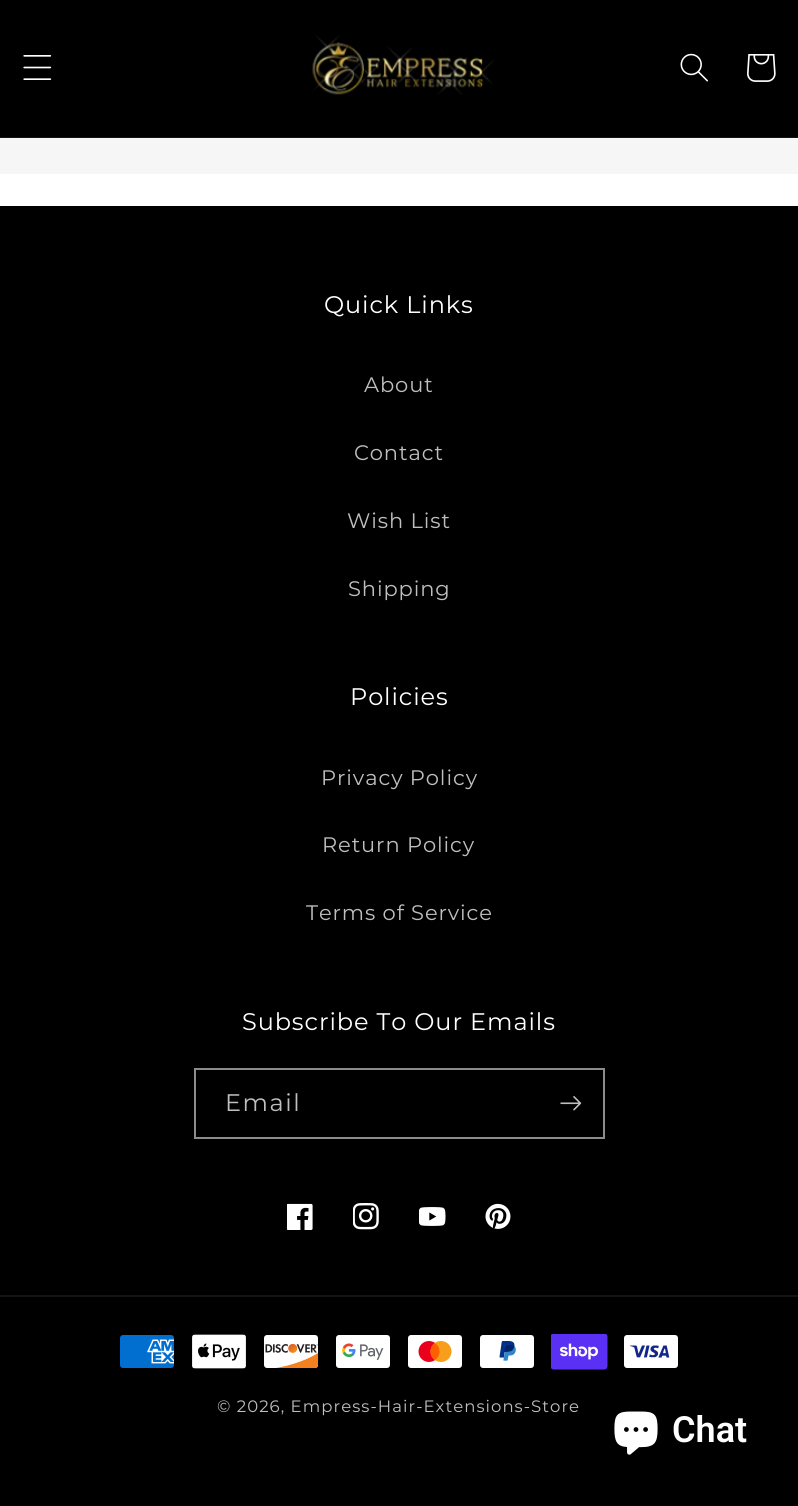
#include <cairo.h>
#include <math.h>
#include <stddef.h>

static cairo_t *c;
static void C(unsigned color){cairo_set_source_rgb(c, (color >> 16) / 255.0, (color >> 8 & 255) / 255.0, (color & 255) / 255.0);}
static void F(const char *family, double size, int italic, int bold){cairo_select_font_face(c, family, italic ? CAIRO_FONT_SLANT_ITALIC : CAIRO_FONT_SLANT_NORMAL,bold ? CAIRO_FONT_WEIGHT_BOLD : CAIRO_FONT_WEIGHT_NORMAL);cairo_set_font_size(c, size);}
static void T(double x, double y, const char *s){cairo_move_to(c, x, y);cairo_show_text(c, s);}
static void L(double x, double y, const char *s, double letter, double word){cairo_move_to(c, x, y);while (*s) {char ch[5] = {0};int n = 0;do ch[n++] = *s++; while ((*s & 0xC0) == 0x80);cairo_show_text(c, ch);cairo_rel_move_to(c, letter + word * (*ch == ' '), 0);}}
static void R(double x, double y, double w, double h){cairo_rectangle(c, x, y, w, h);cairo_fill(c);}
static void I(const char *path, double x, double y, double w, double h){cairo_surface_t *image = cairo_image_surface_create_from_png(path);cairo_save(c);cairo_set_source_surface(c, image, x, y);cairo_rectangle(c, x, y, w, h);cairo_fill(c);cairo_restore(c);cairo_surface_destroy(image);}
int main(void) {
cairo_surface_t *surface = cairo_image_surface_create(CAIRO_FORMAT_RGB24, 798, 1506);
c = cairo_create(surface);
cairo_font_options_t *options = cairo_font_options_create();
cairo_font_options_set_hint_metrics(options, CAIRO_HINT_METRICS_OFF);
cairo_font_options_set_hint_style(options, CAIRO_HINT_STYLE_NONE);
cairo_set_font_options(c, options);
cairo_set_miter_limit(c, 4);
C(0xffffff);
cairo_paint(c);
C(0x000000);
R(0,0,798,137);
C(0x141414);
R(0,137,798,1);
I("1.png",23,55,29,25);
I("2.png",312,35,182,60);
I("3.png",680,53,28,29);
I("4.png",747,54,29,28);
C(0xf6f6f6);
R(0,139,798,35);
C(0xf7f7f7);
R(0,138,798,1);
C(0x000000);
R(0,206,798,1300);
F("Montserrat",24,0,0);
C(0xffffff);
L(324,313,"Quick Links",.9,0);
F("Montserrat",21,0,0);
C(0xbfbfbf);
L(364,392,"About",.9,0);
L(354,460,"Contact",.9,0);
L(347,528,"Wish List",.9,0);
L(348,596,"Shipping",.9,0);
F("Montserrat",24,0,0);
C(0xffffff);
L(350,705,"Policies",.9,0);
F("Montserrat",21,0,0);
C(0xbfbfbf);
L(321,785,"Privacy Policy",.9,0);
L(322,852,"Return Policy",.9,0);
L(306,920,"Terms of Service",.9,0);
F("Montserrat",24,0,0);
C(0xffffff);
L(242,1030,"Subscribe To Our Emails",.9,0);
cairo_rectangle(c,195,1069,409,69);
C(0x8c8c8c);
cairo_stroke(c);
C(0xbfbfbf);
L(225,1111,"Email",1.5,0);
I("5.png",560,1096,22,15);
I("6.png",287,1203,26,27);
I("7.png",353,1203,26,27);
I("8.png",419,1207,27,19);
I("9.png",485,1203,26,26);
C(0x141414);
R(0,1295,798,2);
I("10.png",120,1335,54,33);
I("11.png",192,1334,54,35);
I("12.png",264,1335,55,33);
I("13.png",336,1335,54,33);
I("14.png",408,1335,54,33);
I("15.png",480,1335,54,33);
I("16.png",551,1334,57,36);
I("17.png",624,1335,54,33);
F("Montserrat",16.5,0,0);
C(0xbfbfbf);
L(217,1412,"© 2026, Empress-Hair-Extensions-Store",1.05,0);
I("18.png",614,1411,44,44);
F("Roboto SemiBold",36,0,0);
C(0xffffff);
T(672,1442,"Chat");
cairo_surface_write_to_png(surface, "o.png");
cairo_font_options_destroy(options);
cairo_destroy(c);
cairo_surface_destroy(surface);
return 0;
}
